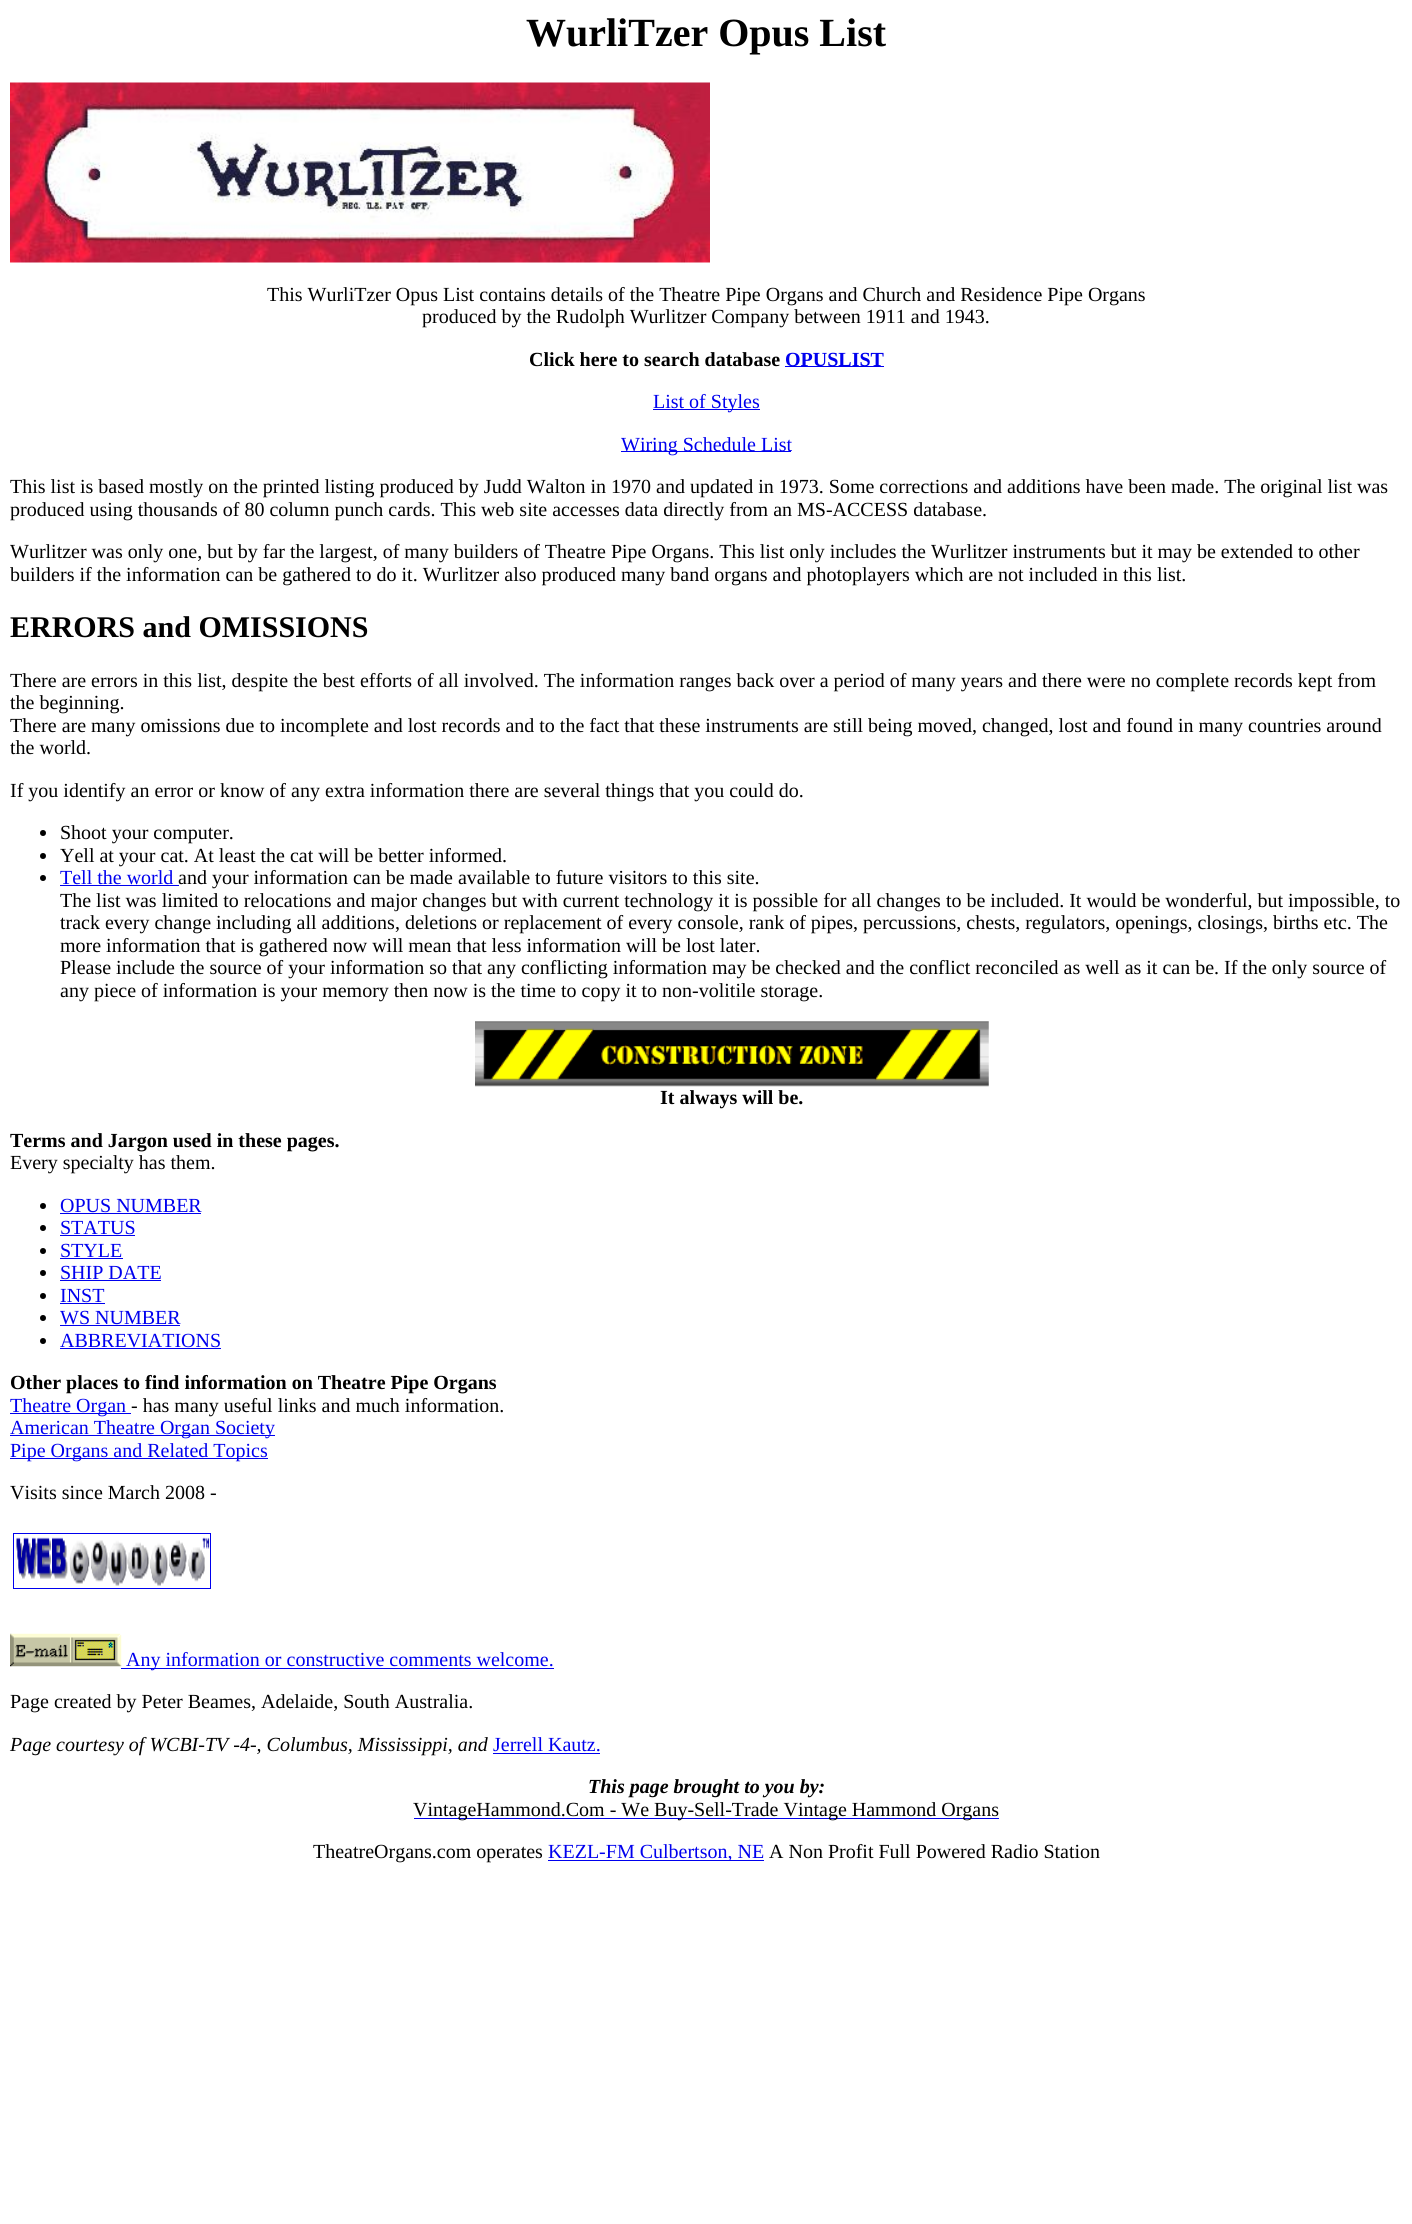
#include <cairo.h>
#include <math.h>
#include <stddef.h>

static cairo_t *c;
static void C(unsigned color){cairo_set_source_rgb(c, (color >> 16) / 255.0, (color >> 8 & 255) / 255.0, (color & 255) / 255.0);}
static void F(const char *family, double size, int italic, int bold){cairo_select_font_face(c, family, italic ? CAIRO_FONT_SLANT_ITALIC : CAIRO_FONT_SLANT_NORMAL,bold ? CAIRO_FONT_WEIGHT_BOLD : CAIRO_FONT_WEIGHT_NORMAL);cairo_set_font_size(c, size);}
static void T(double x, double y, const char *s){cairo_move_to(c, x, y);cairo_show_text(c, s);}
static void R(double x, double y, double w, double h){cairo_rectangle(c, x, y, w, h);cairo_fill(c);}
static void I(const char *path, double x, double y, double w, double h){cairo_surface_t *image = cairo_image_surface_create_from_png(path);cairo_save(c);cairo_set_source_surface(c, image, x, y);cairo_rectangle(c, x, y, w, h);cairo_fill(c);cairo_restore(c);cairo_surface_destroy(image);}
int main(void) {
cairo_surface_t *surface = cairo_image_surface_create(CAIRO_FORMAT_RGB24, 1412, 2224);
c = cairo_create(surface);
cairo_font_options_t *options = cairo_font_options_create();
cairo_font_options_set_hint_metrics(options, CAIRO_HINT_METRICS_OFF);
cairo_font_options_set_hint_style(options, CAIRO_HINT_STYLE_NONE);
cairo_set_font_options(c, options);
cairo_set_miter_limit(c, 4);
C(0xffffff);
cairo_paint(c);
F("Liberation Serif",40,0,1);
C(0x000000);
T(526,46,"WurliTzer Opus List");
I("1.png",10,82,700,181);
F("Liberation Serif",20,0,0);
T(267,301,"This WurliTzer Opus List contains details of the Theatre Pipe Organs and Church and Residence Pipe Organs");
T(422,323,"produced by the Rudolph Wurlitzer Company between 1911 and 1943.");
F("Liberation Serif",20,0,1);
T(529,366,"Click here to search database");
C(0x0000ee);
R(785,366,99,1);
T(785,366,"OPUSLIST");
R(653,409,107,1);
F("Liberation Serif",20,0,0);
T(653,408,"List of Styles");
R(621,451,170,1);
T(621,451,"Wiring Schedule List");
C(0x000000);
T(10,493,"This list is based mostly on the printed listing produced by Judd Walton in 1970 and updated in 1973. Some corrections and additions have been made. The original list was");
T(10,516,"produced using thousands of 80 column punch cards. This web site accesses data directly from an MS-ACCESS database.");
T(10,558,"Wurlitzer was only one, but by far the largest, of many builders of Theatre Pipe Organs. This list only includes the Wurlitzer instruments but it may be extended to other");
T(10,581,"builders if the information can be gathered to do it. Wurlitzer also produced many band organs and photoplayers which are not included in this list.");
F("Liberation Serif",30,0,1);
T(10,637,"ERRORS and OMISSIONS");
F("Liberation Serif",20,0,0);
T(10,687,"There are errors in this list, despite the best efforts of all involved. The information ranges back over a period of many years and there were no complete records kept from");
T(10,709,"the beginning.");
T(10,732,"There are many omissions due to incomplete and lost records and to the fact that these instruments are still being moved, changed, lost and found in many countries around");
T(10,754,"the world.");
T(10,797,"If you identify an error or know of any extra information there are several things that you could do.");
cairo_new_path(c);
cairo_arc(c,43,833,3,0,2 * M_PI);
cairo_fill(c);
T(60,839,"Shoot your computer.");
cairo_new_path(c);
cairo_arc(c,43,856,3,0,2 * M_PI);
cairo_fill(c);
T(60,862,"Yell at your cat. At least the cat will be better informed.");
cairo_new_path(c);
cairo_arc(c,43,878,3,0,2 * M_PI);
cairo_fill(c);
C(0x0000ee);
T(60,884,"Tell the world");
R(60,885,119,1);
C(0x000000);
T(178,884,"and your information can be made available to future visitors to this site.");
T(60,907,"The list was limited to relocations and major changes but with current technology it is possible for all changes to be included. It would be wonderful, but impossible, to");
T(60,929,"track every change including all additions, deletions or replacement of every console, rank of pipes, percussions, chests, regulators, openings, closings, births etc. The");
T(60,952,"more information that is gathered now will mean that less information will be lost later.");
T(60,974,"Please include the source of your information so that any conflicting information may be checked and the conflict reconciled as well as it can be. If the only source of");
T(60,997,"any piece of information is your memory then now is the time to copy it to non-volitile storage.");
I("2.png",475,1021,514,66);
F("Liberation Serif",20,0,1);
T(660,1104,"It always will be.");
T(10,1147,"Terms and Jargon used in these pages.");
F("Liberation Serif",20,0,0);
T(10,1169,"Every specialty has them.");
cairo_new_path(c);
cairo_arc(c,43,1206,3,0,2 * M_PI);
cairo_fill(c);
C(0x0000ee);
T(60,1212,"OPUS NUMBER");
R(60,1213,141,1);
C(0x000000);
cairo_new_path(c);
cairo_arc(c,43,1228,3,0,2 * M_PI);
cairo_fill(c);
C(0x0000ee);
T(60,1234,"STATUS");
R(60,1235,75,1);
C(0x000000);
cairo_new_path(c);
cairo_arc(c,43,1251,3,0,2 * M_PI);
cairo_fill(c);
C(0x0000ee);
T(60,1257,"STYLE");
R(60,1258,63,1);
C(0x000000);
cairo_new_path(c);
cairo_arc(c,43,1273,3,0,2 * M_PI);
cairo_fill(c);
C(0x0000ee);
T(60,1279,"SHIP DATE");
R(60,1280,101,1);
C(0x000000);
cairo_new_path(c);
cairo_arc(c,43,1296,3,0,2 * M_PI);
cairo_fill(c);
C(0x0000ee);
T(60,1302,"INST");
R(60,1303,45,1);
C(0x000000);
cairo_new_path(c);
cairo_arc(c,43,1318,3,0,2 * M_PI);
cairo_fill(c);
C(0x0000ee);
T(60,1324,"WS NUMBER");
R(60,1325,120,1);
C(0x000000);
cairo_new_path(c);
cairo_arc(c,43,1341,3,0,2 * M_PI);
cairo_fill(c);
C(0x0000ee);
T(60,1347,"ABBREVIATIONS");
R(60,1348,161,1);
F("Liberation Serif",20,0,1);
C(0x000000);
T(10,1389,"Other places to find information on Theatre Pipe Organs");
C(0x0000ee);
R(10,1413,121,1);
F("Liberation Serif",20,0,0);
T(10,1412,"Theatre Organ");
C(0x000000);
T(131,1412,"- has many useful links and much information.");
C(0x0000ee);
R(10,1435,265,1);
T(10,1434,"American Theatre Organ Society");
R(10,1458,258,1);
T(10,1457,"Pipe Organs and Related Topics");
C(0x000000);
T(10,1499,"Visits since March 2008 -");
cairo_rectangle(c,13.5,1533.5,197,55);
C(0x0000ee);
cairo_set_line_width(c,1);
cairo_stroke(c);
I("3.png",16,1537,194,49);
I("4.png",10,1633,112,34);
R(121,1668,433,1);
T(126,1666,"Any information or constructive comments welcome.");
C(0x000000);
T(10,1708,"Page created by Peter Beames, Adelaide, South Australia.");
F("Liberation Serif",20,1,0);
T(10,1751,"Page courtesy of WCBI-TV -4-, Columbus, Mississippi, and");
F("Liberation Serif",20,0,0);
C(0x0000ee);
T(493,1751,"Jerrell Kautz.");
R(493,1753,107,1);
F("Liberation Serif",20,1,1);
C(0x000000);
T(588,1793,"This page brought to you by:");
C(0x0000ee);
R(414,1818,585,1);
F("Liberation Serif",20,0,0);
C(0x000000);
T(413,1816,"VintageHammond.Com - We Buy-Sell-Trade Vintage Hammond Organs");
T(313,1858,"TheatreOrgans.com operates");
C(0x0000ee);
R(548,1860,216,1);
T(548,1858,"KEZL-FM Culbertson, NE");
C(0x000000);
T(769,1858,"A Non Profit Full Powered Radio Station");
cairo_surface_write_to_png(surface, "o.png");
cairo_font_options_destroy(options);
cairo_destroy(c);
cairo_surface_destroy(surface);
return 0;
}
